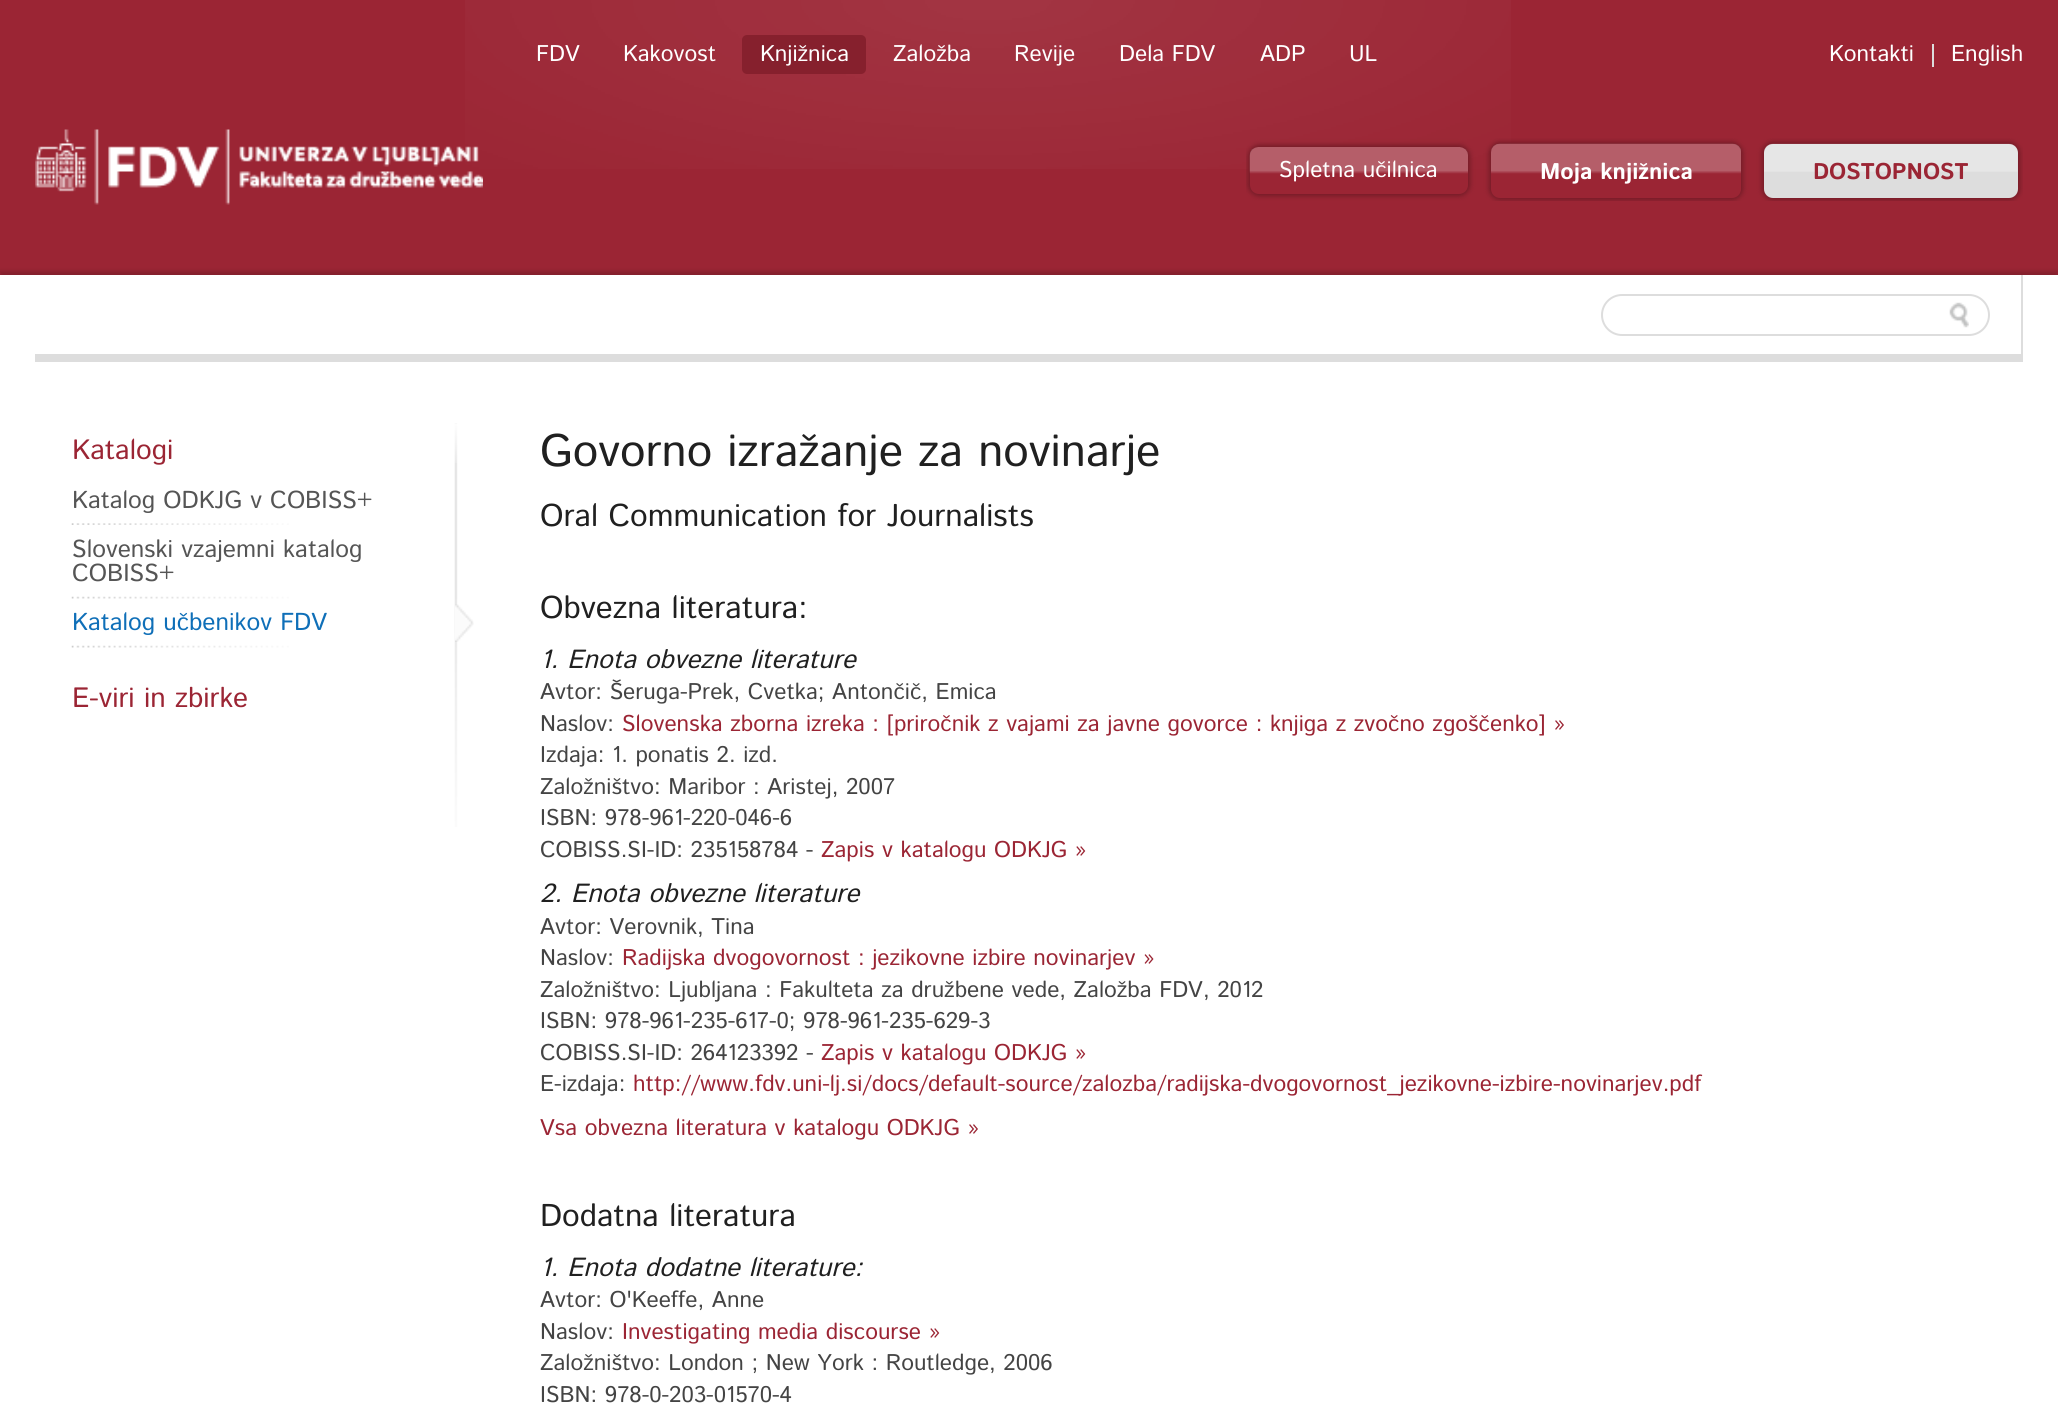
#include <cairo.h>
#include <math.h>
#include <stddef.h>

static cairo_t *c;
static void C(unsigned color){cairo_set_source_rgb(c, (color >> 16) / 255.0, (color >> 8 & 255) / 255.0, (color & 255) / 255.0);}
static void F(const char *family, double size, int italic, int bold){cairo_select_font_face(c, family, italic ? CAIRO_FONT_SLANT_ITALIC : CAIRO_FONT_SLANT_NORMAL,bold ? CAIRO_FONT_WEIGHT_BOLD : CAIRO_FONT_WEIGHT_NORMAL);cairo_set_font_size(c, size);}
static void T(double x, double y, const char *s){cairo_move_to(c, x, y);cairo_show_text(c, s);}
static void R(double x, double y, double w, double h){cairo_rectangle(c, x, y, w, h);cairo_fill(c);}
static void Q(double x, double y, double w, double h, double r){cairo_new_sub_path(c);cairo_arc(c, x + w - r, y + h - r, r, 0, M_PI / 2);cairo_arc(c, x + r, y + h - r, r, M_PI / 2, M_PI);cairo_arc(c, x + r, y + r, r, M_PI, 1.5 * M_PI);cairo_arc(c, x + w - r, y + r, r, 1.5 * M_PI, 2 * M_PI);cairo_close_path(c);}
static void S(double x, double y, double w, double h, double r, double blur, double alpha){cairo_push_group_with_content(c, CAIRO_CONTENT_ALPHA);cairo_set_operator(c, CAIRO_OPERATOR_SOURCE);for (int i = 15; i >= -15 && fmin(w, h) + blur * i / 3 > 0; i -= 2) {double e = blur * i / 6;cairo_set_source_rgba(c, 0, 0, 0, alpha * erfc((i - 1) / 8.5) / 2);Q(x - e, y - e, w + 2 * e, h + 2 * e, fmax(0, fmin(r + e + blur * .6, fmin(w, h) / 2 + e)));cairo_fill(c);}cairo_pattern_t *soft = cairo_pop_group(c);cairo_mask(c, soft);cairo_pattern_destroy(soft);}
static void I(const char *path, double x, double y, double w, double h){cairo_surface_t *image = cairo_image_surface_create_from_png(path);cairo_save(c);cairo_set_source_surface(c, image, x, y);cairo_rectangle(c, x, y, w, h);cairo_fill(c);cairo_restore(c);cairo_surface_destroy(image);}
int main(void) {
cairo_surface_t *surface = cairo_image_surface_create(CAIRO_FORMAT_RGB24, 2058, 1422);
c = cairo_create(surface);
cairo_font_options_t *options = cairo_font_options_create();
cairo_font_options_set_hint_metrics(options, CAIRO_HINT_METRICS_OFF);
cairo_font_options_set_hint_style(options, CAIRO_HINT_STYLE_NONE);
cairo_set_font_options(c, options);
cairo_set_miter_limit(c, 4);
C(0x9b2534);
cairo_paint(c);
I("1.png",465,0,1046,169);
F("Istok Web",22.75,0,0);
C(0xffffff);
T(536,61,"FDV");
T(623,61,"Kakovost");
C(0x86202d);
Q(742,35,124,39,5);
cairo_fill(c);
C(0xffffff);
T(760,61,"Knjižnica");
T(893,61,"Založba");
T(1014,61,"Revije");
T(1119,61,"Dela FDV");
T(1260,61,"ADP");
T(1349,61,"UL");
C(0xdddddd);
R(1932,44,2,23);
C(0xffffff);
T(1829,61,"Kontakti");
T(1951,61,"English");
I("2.png",35,129,448,76);
cairo_save(c);
cairo_rectangle(c,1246,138,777,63);
cairo_clip(c);
C(0x721b26);
S(1248,145,222,51,11,2.5,1);
cairo_restore(c);
C(0x9b2534);
Q(1250,147,218,47,9);
cairo_fill(c);
I("3.png",1249,147,219,27);
C(0xffffff);
T(1279,177,"Spletna učilnica");
cairo_save(c);
cairo_rectangle(c,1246,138,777,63);
cairo_clip(c);
C(0x721b26);
S(1489,142,254,58,11,2.5,1);
cairo_restore(c);
C(0x9b2534);
Q(1491,144,250,54,9);
cairo_fill(c);
I("4.png",1491,143,250,31);
F("Istok Web",22.75,0,1);
C(0xffffff);
T(1540,179,"Moja knjižnica");
cairo_save(c);
cairo_rectangle(c,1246,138,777,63);
cairo_clip(c);
C(0x721b26);
S(1762,142,258,58,11,2.5,1);
cairo_restore(c);
C(0xdddddd);
Q(1764,144,254,54,9);
cairo_fill(c);
I("5.png",1764,143,254,29);
C(0x9b2534);
T(1813,179,"DOSTOPNOST");
C(0x000000);
S(0,271,2058,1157,0,2,.15);
C(0xffffff);
R(0,275,2058,1147);
C(0xdddddd);
R(35,354,1988,8);
R(2021,275,2,79);
Q(1602,295,387,40,20);
cairo_stroke(c);
I("6.png",1949,302,20,26);
I("7.png",454,423,4,404);
I("8.png",454,424,4,39);
F("Istok Web",28,0,0);
C(0x9b2534);
T(72,459,"Katalogi");
I("9.png",71,523,218,2);
F("Istok Web",24.5,0,0);
C(0x555555);
T(72,508,"Katalog ODKJG v COBISS+");
I("10.png",71,596,218,3);
T(72,557,"Slovenski vzajemni katalog");
T(72,581,"COBISS+");
I("10.png",71,645,218,3);
I("11.png",455,604,19,38);
C(0x0f6fb8);
T(72,630,"Katalog učbenikov FDV");
F("Istok Web",28,0,0);
C(0x9b2534);
T(72,707,"E-viri in zbirke");
F("Istok Web",45.5,0,0);
C(0x202020);
T(540,466,"Govorno izražanje za novinarje");
F("Istok Web",31.5,0,0);
T(540,526,"Oral Communication for Journalists");
T(540,618,"Obvezna literatura:");
F("Istok Web",26.25,1,0);
T(540,668,"1. Enota obvezne literature");
F("Istok Web",22.75,0,0);
C(0x444444);
T(540,699,"Avtor: Šeruga-Prek, Cvetka; Antončič, Emica");
T(540,731,"Naslov:");
C(0x9b2534);
T(622,731,"Slovenska zborna izreka : [priročnik z vajami za javne govorce : knjiga z zvočno zgoščenko] »");
C(0x444444);
T(540,762,"Izdaja: 1. ponatis 2. izd.");
T(540,794,"Založništvo: Maribor : Aristej, 2007");
T(540,825,"ISBN: 978-961-220-046-6");
T(540,857,"COBISS.SI-ID: 235158784 -");
C(0x9b2534);
T(821,857,"Zapis v katalogu ODKJG »");
F("Istok Web",26.25,1,0);
C(0x202020);
T(540,902,"2. Enota obvezne literature");
F("Istok Web",22.75,0,0);
C(0x444444);
T(540,934,"Avtor: Verovnik, Tina");
T(540,965,"Naslov:");
C(0x9b2534);
T(622,965,"Radijska dvogovornost : jezikovne izbire novinarjev »");
C(0x444444);
T(540,997,"Založništvo: Ljubljana : Fakulteta za družbene vede, Založba FDV, 2012");
T(540,1028,"ISBN: 978-961-235-617-0; 978-961-235-629-3");
T(540,1060,"COBISS.SI-ID: 264123392 -");
C(0x9b2534);
T(821,1060,"Zapis v katalogu ODKJG »");
C(0x444444);
T(540,1091,"E-izdaja:");
C(0x9b2534);
T(633,1091,"http://www.fdv.uni-lj.si/docs/default-source/zalozba/radijska-dvogovornost_jezikovne-izbire-novinarjev.pdf");
T(540,1135,"Vsa obvezna literatura v katalogu ODKJG »");
F("Istok Web",31.5,0,0);
C(0x202020);
T(540,1226,"Dodatna literatura");
F("Istok Web",26.25,1,0);
T(540,1276,"1. Enota dodatne literature:");
F("Istok Web",22.75,0,0);
C(0x444444);
T(540,1307,"Avtor: O'Keeffe, Anne");
T(540,1339,"Naslov:");
C(0x9b2534);
T(622,1339,"Investigating media discourse »");
C(0x444444);
T(540,1370,"Založništvo: London ; New York : Routledge, 2006");
T(540,1402,"ISBN: 978-0-203-01570-4");
cairo_surface_write_to_png(surface, "o.png");
cairo_font_options_destroy(options);
cairo_destroy(c);
cairo_surface_destroy(surface);
return 0;
}
